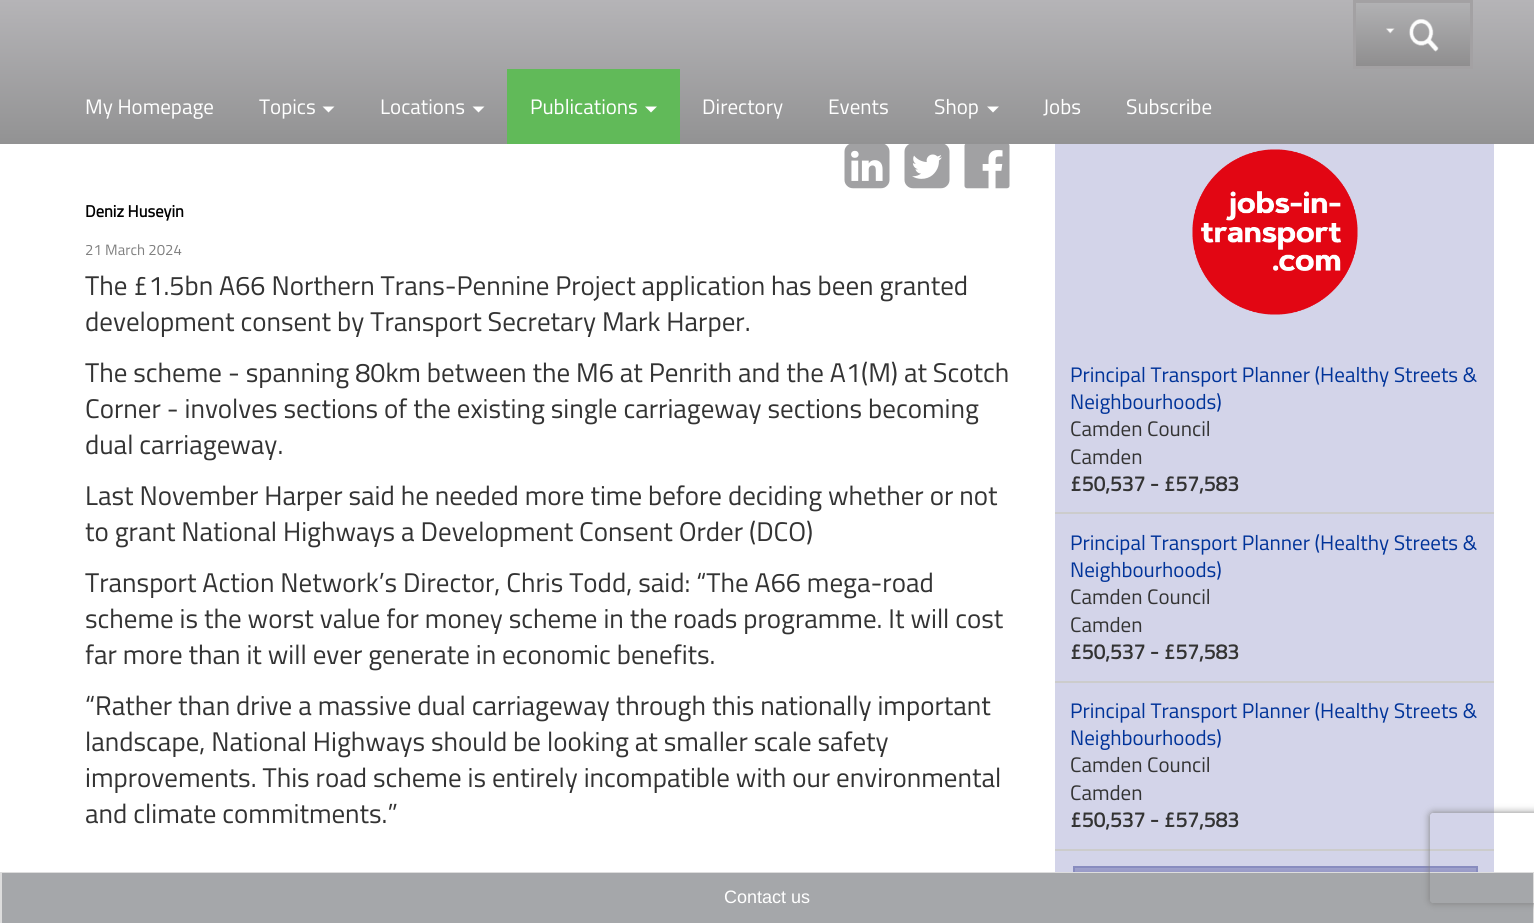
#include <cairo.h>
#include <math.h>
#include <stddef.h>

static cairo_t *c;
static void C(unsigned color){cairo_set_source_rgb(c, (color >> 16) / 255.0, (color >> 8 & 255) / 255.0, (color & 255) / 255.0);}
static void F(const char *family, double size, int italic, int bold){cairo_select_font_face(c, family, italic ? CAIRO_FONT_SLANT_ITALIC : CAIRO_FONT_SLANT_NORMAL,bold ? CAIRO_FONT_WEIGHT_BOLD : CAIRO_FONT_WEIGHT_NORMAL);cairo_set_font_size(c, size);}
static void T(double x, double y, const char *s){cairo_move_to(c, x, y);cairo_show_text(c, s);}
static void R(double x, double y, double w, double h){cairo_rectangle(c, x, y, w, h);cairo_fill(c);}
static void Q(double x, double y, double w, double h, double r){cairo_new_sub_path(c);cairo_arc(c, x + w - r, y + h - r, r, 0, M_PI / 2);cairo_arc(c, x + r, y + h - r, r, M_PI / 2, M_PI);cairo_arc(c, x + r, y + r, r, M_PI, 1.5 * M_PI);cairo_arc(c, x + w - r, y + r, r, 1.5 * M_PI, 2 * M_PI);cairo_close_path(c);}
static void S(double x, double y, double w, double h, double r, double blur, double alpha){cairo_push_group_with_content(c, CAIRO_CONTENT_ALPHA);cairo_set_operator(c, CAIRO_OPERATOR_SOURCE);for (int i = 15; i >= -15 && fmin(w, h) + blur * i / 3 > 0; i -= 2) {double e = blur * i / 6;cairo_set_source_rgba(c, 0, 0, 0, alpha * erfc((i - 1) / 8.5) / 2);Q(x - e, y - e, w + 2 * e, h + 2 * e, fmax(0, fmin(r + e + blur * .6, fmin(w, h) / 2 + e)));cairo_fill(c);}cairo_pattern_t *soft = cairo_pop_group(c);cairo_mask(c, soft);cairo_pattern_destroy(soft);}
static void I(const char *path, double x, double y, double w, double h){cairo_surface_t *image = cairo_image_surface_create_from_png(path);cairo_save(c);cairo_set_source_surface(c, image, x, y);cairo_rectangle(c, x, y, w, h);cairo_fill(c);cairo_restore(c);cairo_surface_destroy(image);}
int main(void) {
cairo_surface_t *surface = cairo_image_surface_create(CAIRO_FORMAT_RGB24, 1534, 923);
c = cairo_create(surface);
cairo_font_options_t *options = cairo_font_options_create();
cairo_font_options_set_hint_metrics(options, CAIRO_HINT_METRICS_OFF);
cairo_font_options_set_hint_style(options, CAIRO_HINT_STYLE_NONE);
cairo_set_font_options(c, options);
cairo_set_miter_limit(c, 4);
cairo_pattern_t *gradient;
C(0xffffff);
cairo_paint(c);
gradient = cairo_pattern_create_linear(767,0,767,144);
cairo_pattern_add_color_stop_rgba(gradient,0,0.71,0.706,0.718,1);
cairo_pattern_add_color_stop_rgba(gradient,1,0.573,0.573,0.576,1);
cairo_set_source(c,gradient);
cairo_pattern_destroy(gradient);
R(0,0,1534,144);
gradient = cairo_pattern_create_linear(1413,3,1413,66);
cairo_pattern_add_color_stop_rgba(gradient,0,0.694,0.694,0.702,1);
cairo_pattern_add_color_stop_rgba(gradient,1,0.561,0.557,0.561,1);
cairo_set_source(c,gradient);
cairo_pattern_destroy(gradient);
R(1356,3,114,63);
cairo_rectangle(c,1354.5,1.5,117,66);
C(0xa3a1a3);
cairo_set_line_width(c,3);
cairo_stroke(c);
I("1.png",1386,19,53,33);
F("Titillium Web",21,0,0);
C(0xffffff);
T(85,114,"My Homepage");
T(259,114,"Topics");
cairo_new_path(c);
cairo_move_to(c,322.5,106.5);
cairo_line_to(c,334.5,106.5);
cairo_line_to(c,328.5,112.5);
cairo_close_path(c);
cairo_fill(c);
T(380,114,"Locations");
cairo_new_path(c);
cairo_move_to(c,472.5,106.5);
cairo_line_to(c,484.5,106.5);
cairo_line_to(c,478.5,112.5);
cairo_close_path(c);
cairo_fill(c);
C(0x61ba59);
R(507,69,173,75);
C(0xffffff);
T(530,114,"Publications");
cairo_new_path(c);
cairo_move_to(c,645,106.5);
cairo_line_to(c,657,106.5);
cairo_line_to(c,651,112.5);
cairo_close_path(c);
cairo_fill(c);
T(702,114,"Directory");
T(828,114,"Events");
T(934,114,"Shop");
cairo_new_path(c);
cairo_move_to(c,987,106.5);
cairo_line_to(c,999,106.5);
cairo_line_to(c,993,112.5);
cairo_close_path(c);
cairo_fill(c);
T(1043,114,"Jobs");
T(1126,114,"Subscribe");
I("2.png",844,144,46,45);
I("3.png",904,144,46,45);
I("4.png",964,144,46,45);
F("Titillium Web",16.5,0,1);
C(0x000000);
T(85,217,"Deniz Huseyin");
F("Titillium Web",15,0,0);
C(0x808080);
T(85,255,"21 March 2024");
F("Titillium Web",27,0,0);
C(0x333333);
T(85,295,"The £1.5bn A66 Northern Trans-Pennine Project application has been granted");
T(85,331,"development consent by Transport Secretary Mark Harper.");
T(85,382,"The scheme - spanning 80km between the M6 at Penrith and the A1(M) at Scotch");
T(85,418,"Corner - involves sections of the existing single carriageway sections becoming");
T(85,454,"dual carriageway.");
T(85,505,"Last November Harper said he needed more time before deciding whether or not");
T(85,541,"to grant National Highways a Development Consent Order (DCO)");
T(85,592,"Transport Action Network’s Director, Chris Todd, said: “The A66 mega-road");
T(85,628,"scheme is the worst value for money scheme in the roads programme. It will cost");
T(85,664,"far more than it will ever generate in economic benefits.");
T(85,715,"“Rather than drive a massive dual carriageway through this nationally important");
T(85,751,"landscape, National Highways should be looking at smaller scale safety");
T(85,787,"improvements. This road scheme is entirely incompatible with our environmental");
T(85,823,"and climate commitments.”");
C(0xd3d4e9);
R(1055,144,439,728);
I("5.png",1192,149,166,166);
C(0xcccccc);
R(1055,512,439,2);
F("Titillium Web",21,0,0);
C(0x003399);
T(1070,382,"Principal Transport Planner (Healthy Streets &");
T(1070,409,"Neighbourhoods)");
C(0x333333);
T(1070,436,"Camden Council");
T(1070,464,"Camden");
F("Titillium Web",21,0,1);
T(1070,491,"£50,537 - £57,583");
C(0xcccccc);
R(1055,681,439,2);
F("Titillium Web",21,0,0);
C(0x003399);
T(1070,550,"Principal Transport Planner (Healthy Streets &");
T(1070,577,"Neighbourhoods)");
C(0x333333);
T(1070,604,"Camden Council");
T(1070,632,"Camden");
F("Titillium Web",21,0,1);
T(1070,659,"£50,537 - £57,583");
C(0xcccccc);
R(1055,849,439,2);
F("Titillium Web",21,0,0);
C(0x003399);
T(1070,718,"Principal Transport Planner (Healthy Streets &");
T(1070,745,"Neighbourhoods)");
C(0x333333);
T(1070,772,"Camden Council");
T(1070,800,"Camden");
F("Titillium Web",21,0,1);
T(1070,827,"£50,537 - £57,583");
gradient = cairo_pattern_create_linear(1275,867,1275,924);
cairo_pattern_add_color_stop_rgba(gradient,0,0.631,0.635,0.8,1);
cairo_pattern_add_color_stop_rgba(gradient,1,0.231,0.31,0.588,1);
cairo_set_source(c,gradient);
cairo_pattern_destroy(gradient);
R(1075,868,401,4);
cairo_rectangle(c,1074,867,403,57);
C(0x888cbf);
cairo_set_line_width(c,2);
cairo_stroke(c);
cairo_rectangle(c,1,873,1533,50);
C(0xdddddd);
cairo_stroke(c);
C(0xa5a7aa);
R(2,873,1531,50);
F("Liberation Sans",18,0,0);
C(0xffffff);
T(724,903,"Contact us");
cairo_save(c);
cairo_set_fill_rule(c,CAIRO_FILL_RULE_EVEN_ODD);
cairo_new_path(c);
cairo_move_to(c,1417,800);
cairo_line_to(c,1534,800);
cairo_line_to(c,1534,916);
cairo_line_to(c,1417,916);
cairo_close_path(c);
cairo_move_to(c,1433,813);
cairo_line_to(c,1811,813);
cairo_curve_to(c,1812.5,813,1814,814.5,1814,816);
cairo_line_to(c,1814,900);
cairo_curve_to(c,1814,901.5,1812.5,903,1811,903);
cairo_line_to(c,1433,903);
cairo_curve_to(c,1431.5,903,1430,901.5,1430,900);
cairo_line_to(c,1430,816);
cairo_curve_to(c,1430,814.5,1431.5,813,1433,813);
cairo_close_path(c);
cairo_clip(c);
C(0x808080);
S(1430,813,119,90,3,4,1);
cairo_restore(c);
cairo_surface_write_to_png(surface, "o.png");
cairo_font_options_destroy(options);
cairo_destroy(c);
cairo_surface_destroy(surface);
return 0;
}
